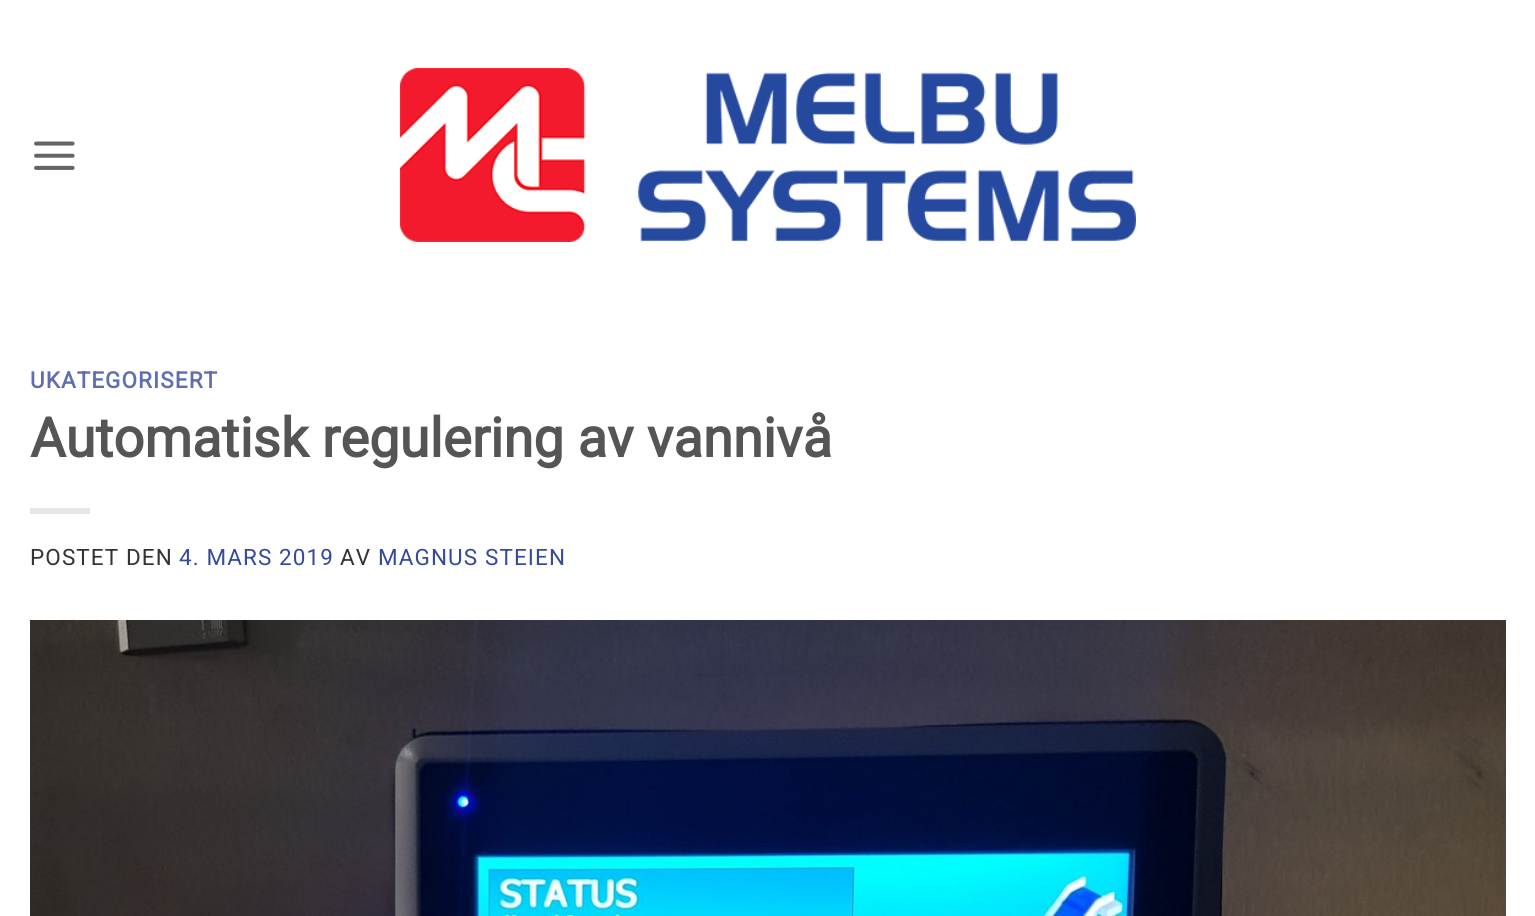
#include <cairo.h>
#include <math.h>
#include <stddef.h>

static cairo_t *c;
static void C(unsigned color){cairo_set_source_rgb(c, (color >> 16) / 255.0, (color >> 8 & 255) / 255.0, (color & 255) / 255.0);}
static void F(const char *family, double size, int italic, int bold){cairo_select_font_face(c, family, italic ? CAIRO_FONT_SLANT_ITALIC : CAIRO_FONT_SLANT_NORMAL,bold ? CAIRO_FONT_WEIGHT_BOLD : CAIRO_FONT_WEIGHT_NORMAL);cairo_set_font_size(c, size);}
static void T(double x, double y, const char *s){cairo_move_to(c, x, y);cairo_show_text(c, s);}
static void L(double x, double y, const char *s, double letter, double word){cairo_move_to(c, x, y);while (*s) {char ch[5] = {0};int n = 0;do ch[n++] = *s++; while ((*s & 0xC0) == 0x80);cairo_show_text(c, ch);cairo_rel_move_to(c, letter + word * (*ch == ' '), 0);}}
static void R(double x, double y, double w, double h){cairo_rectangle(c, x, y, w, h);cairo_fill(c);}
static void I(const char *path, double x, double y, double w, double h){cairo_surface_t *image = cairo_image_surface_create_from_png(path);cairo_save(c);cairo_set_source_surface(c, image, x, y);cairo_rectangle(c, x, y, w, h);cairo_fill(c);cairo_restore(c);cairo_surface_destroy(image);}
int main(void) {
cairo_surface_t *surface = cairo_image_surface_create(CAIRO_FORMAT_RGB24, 1535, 916);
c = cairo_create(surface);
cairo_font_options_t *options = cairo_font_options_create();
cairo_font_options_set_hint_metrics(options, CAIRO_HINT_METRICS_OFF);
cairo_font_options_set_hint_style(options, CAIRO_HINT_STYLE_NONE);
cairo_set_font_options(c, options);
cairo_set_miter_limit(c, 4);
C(0xffffff);
cairo_paint(c);
I("1.png",34,141,41,29);
I("2.png",400,68,736,174);
F("Roboto",22.5,0,1);
C(0x5e6eb0);
L(30,388,"UKATEGORISERT",1.1,0);
F("Roboto",54.4,0,1);
C(0x555555);
T(30,457,"Automatisk regulering av vannivå");
C(0xe6e6e6);
R(30,508,60,6);
F("Roboto",22.5,0,0);
C(0x333333);
L(30,565,"POSTET DEN",1.1,0);
C(0x364a9c);
L(179,565,"4. MARS 2019",1.1,0);
C(0x333333);
L(340,565,"AV",1.1,0);
C(0x364a9c);
L(378,565,"MAGNUS STEIEN",1.1,0);
I("3.png",30,620,1476,296);
cairo_surface_write_to_png(surface, "o.png");
cairo_font_options_destroy(options);
cairo_destroy(c);
cairo_surface_destroy(surface);
return 0;
}
